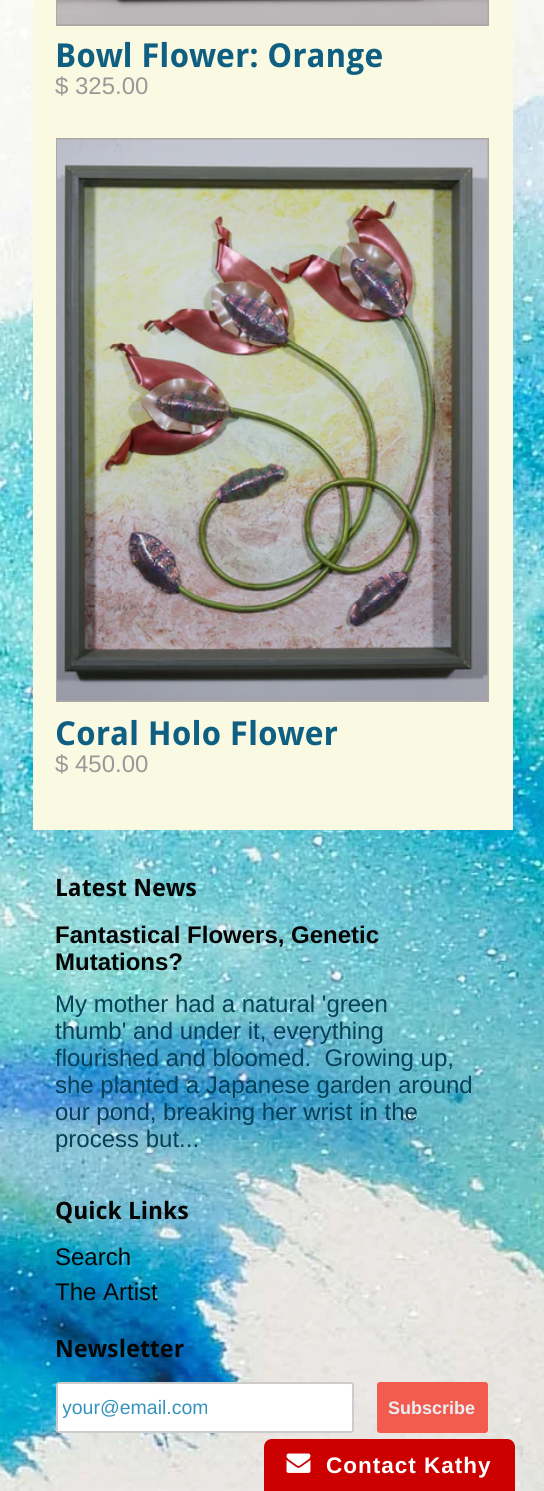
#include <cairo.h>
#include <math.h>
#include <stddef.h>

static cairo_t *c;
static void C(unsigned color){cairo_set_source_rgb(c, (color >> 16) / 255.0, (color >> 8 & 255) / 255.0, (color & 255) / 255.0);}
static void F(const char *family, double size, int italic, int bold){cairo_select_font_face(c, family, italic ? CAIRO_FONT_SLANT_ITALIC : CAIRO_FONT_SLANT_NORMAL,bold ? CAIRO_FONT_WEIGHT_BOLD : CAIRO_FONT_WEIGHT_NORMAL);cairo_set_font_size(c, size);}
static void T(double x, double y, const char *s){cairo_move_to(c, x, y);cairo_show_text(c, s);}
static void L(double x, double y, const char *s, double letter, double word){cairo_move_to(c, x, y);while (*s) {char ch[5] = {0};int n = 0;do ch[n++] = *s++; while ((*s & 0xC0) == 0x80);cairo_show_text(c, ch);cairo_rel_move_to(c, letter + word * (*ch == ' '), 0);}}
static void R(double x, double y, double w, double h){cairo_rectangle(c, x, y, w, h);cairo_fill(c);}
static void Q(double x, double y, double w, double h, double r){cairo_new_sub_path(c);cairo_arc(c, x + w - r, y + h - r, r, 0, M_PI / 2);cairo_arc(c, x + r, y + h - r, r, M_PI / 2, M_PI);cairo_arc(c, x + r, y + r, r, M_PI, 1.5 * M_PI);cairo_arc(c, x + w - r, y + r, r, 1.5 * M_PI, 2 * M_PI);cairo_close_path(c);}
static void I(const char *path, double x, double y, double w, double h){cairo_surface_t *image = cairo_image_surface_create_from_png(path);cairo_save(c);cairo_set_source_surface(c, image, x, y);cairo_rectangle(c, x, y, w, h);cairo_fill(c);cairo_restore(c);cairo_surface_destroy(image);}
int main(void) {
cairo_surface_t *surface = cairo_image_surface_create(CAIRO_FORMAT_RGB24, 544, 1491);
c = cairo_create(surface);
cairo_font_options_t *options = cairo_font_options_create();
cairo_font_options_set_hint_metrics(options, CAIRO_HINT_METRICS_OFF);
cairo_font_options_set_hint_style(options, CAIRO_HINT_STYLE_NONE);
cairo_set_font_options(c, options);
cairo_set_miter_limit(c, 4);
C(0xffffff);
cairo_paint(c);
I("1.png",0,0,544,1491);
I("2.png",543,195,1,1296);
C(0xfaf9e2);
R(33,0,480,830);
cairo_rectangle(c,57,-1,431,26);
C(0xada7a7);
cairo_stroke(c);
I("3.png",57,0,431,24);
F("Droid Sans",33,0,1);
C(0x0f5f82);
T(55,67,"Bowl Flower: Orange");
F("Liberation Sans",24,0,0);
C(0x999999);
T(55,94,"$ 325.00");
cairo_rectangle(c,57,139,431,562);
C(0xada7a7);
cairo_stroke(c);
I("4.png",57,139,431,562);
F("Droid Sans",33,0,1);
C(0x0f5f82);
T(55,745,"Coral Holo Flower");
F("Liberation Sans",24,0,0);
C(0x999999);
T(55,772,"$ 450.00");
F("Droid Sans",24,0,1);
C(0x050505);
T(55,896,"Latest News");
F("Liberation Sans",24,0,1);
T(55,943,"Fantastical Flowers, Genetic");
T(55,970,"Mutations?");
F("Liberation Sans",24,0,0);
C(0x064059);
T(55,1012,"My mother had a natural 'green");
T(55,1039,"thumb' and under it, everything");
T(55,1066,"flourished and bloomed.  Growing up,");
T(55,1093,"she planted a Japanese garden around");
T(55,1120,"our pond, breaking her wrist in the");
T(55,1147,"process but...");
F("Droid Sans",24,0,1);
C(0x050505);
T(55,1219,"Quick Links");
F("Liberation Sans",24,0,0);
T(55,1265,"Search");
T(55,1300,"The Artist");
F("Droid Sans",24,0,1);
T(55,1357,"Newsletter");
C(0xffffff);
Q(57,1383,296,49,2);
cairo_fill_preserve(c);
C(0xcccccc);
cairo_stroke(c);
cairo_save(c);
cairo_rectangle(c,63,1397,284,22);
cairo_clip(c);
F("Liberation Sans",19.5,0,0);
C(0x3493bc);
T(62,1414,"your@email.com");
cairo_restore(c);
C(0xf45b4f);
Q(377,1382,111,51,3);
cairo_fill(c);
F("Liberation Sans",18,0,1);
C(0xe8eff3);
T(388,1414,"Subscribe");
C(0xcc0000);
cairo_new_path(c);
cairo_move_to(c,272,1439);
cairo_line_to(c,507,1439);
cairo_curve_to(c,511.5,1439,515,1442.5,515,1447);
cairo_line_to(c,515,1491);
cairo_line_to(c,264,1491);
cairo_line_to(c,264,1447);
cairo_curve_to(c,264,1442.5,267.5,1439,272,1439);
cairo_close_path(c);
cairo_fill(c);
I("5.png",286,1453,25,20);
F("Liberation Sans",22.5,0,1);
C(0xffffff);
L(326,1473,"Contact Kathy",1,0);
cairo_surface_write_to_png(surface, "o.png");
cairo_font_options_destroy(options);
cairo_destroy(c);
cairo_surface_destroy(surface);
return 0;
}
